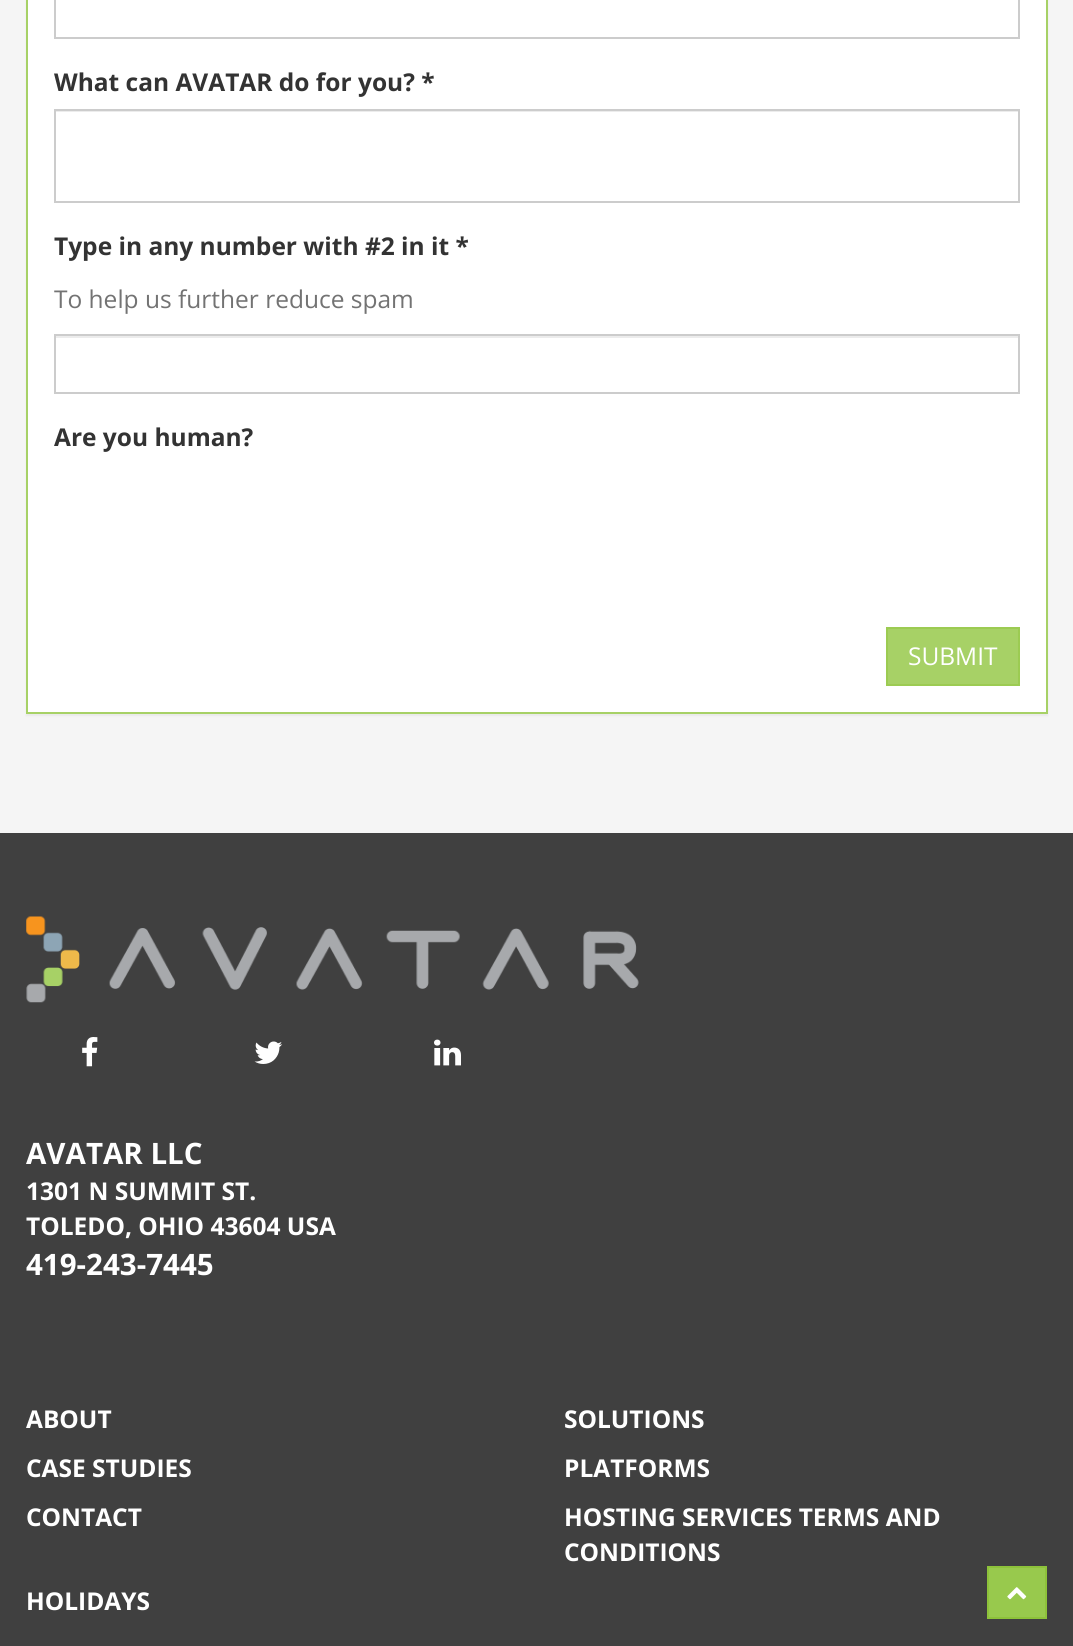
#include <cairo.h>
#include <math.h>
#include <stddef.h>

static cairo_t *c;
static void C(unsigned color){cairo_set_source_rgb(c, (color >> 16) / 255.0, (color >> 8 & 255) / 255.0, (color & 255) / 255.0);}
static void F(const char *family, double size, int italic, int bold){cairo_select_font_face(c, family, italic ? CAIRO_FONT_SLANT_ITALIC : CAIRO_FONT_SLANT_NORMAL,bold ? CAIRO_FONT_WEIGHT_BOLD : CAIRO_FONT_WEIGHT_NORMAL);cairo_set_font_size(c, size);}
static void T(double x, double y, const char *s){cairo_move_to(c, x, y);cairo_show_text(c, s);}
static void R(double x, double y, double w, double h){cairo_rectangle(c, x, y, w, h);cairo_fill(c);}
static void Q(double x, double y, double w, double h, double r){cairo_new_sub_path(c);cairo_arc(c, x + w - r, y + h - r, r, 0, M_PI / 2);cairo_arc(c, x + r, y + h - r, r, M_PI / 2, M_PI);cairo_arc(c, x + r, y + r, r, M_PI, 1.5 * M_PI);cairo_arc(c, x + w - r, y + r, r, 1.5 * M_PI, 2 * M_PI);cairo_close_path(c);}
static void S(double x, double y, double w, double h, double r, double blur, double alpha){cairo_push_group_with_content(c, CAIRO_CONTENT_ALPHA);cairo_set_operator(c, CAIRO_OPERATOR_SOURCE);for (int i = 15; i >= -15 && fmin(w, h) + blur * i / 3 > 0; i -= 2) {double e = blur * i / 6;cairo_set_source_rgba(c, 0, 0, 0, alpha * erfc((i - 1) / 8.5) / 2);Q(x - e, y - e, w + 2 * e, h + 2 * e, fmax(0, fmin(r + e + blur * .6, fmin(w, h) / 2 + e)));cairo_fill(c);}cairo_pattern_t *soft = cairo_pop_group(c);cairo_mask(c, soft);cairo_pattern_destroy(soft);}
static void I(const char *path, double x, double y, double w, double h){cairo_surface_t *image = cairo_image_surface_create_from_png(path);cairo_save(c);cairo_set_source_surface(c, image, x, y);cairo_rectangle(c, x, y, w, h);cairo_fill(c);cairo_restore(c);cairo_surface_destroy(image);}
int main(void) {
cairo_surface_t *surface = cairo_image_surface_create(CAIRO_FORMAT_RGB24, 1073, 1646);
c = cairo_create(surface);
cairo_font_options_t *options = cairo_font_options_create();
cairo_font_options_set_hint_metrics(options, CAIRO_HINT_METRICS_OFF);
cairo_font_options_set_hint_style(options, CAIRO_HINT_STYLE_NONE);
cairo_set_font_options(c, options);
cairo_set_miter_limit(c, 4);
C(0xf5f5f5);
cairo_paint(c);
C(0x000000);
S(26,-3,1022,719,0,1,.05);
C(0xffffff);
cairo_rectangle(c,27,-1,1020,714);
cairo_fill_preserve(c);
C(0xa7d166);
cairo_stroke(c);
cairo_rectangle(c,55,-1,964,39);
C(0xcccccc);
cairo_stroke(c);
F("Open Sans",24.5,0,1);
C(0x333333);
T(54,91,"What can AVATAR do for you? *");
C(0xececec);
R(56,111,963,1);
cairo_rectangle(c,55,110,964,92);
C(0xcccccc);
cairo_stroke(c);
C(0x333333);
T(54,255,"Type in any number with #2 in it *");
F("Open Sans",24.5,0,0);
C(0x737373);
T(54,308,"To help us further reduce spam");
C(0xececec);
R(56,336,963,2);
cairo_rectangle(c,55,335,964,58);
C(0xcccccc);
cairo_stroke(c);
F("Open Sans",24.5,0,1);
C(0x333333);
T(54,446,"Are you human?");
C(0xa7d166);
cairo_rectangle(c,887,628,132,57);
cairo_fill_preserve(c);
C(0x9ccb52);
cairo_stroke(c);
F("Open Sans",24.5,0,0);
C(0xffffff);
T(908,665,"SUBMIT");
C(0x404040);
R(0,833,1073,813);
I("1.png",26,916,613,87);
I("2.png",82,1037,16,30);
I("3.png",254,1041,29,23);
I("4.png",434,1039,27,27);
F("Open Sans",29.5,0,1);
C(0xffffff);
T(26,1164,"AVATAR LLC");
F("Open Sans",24.5,0,1);
T(26,1200,"1301 N SUMMIT ST.");
T(26,1235,"TOLEDO, OHIO 43604 USA");
F("Open Sans",29.5,0,1);
T(26,1275,"419-243-7445");
F("Open Sans",24.5,0,1);
T(26,1428,"ABOUT");
T(564,1428,"SOLUTIONS");
T(26,1477,"CASE STUDIES");
T(564,1477,"PLATFORMS");
T(26,1526,"CONTACT");
T(564,1526,"HOSTING SERVICES TERMS AND");
T(564,1561,"CONDITIONS");
T(26,1610,"HOLIDAYS");
C(0x98c94d);
cairo_rectangle(c,988,1567,58,51);
cairo_fill_preserve(c);
C(0x8dc23a);
cairo_stroke(c);
I("5.png",1007,1587,20,13);
cairo_surface_write_to_png(surface, "o.png");
cairo_font_options_destroy(options);
cairo_destroy(c);
cairo_surface_destroy(surface);
return 0;
}
